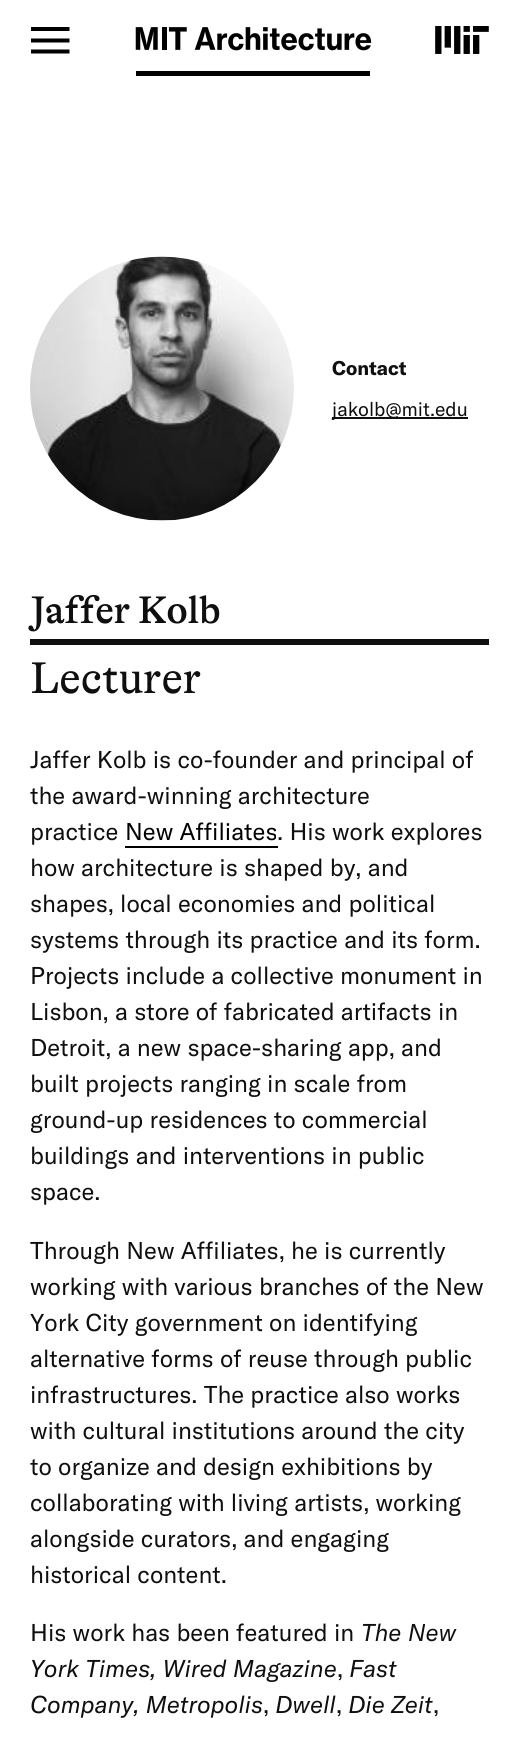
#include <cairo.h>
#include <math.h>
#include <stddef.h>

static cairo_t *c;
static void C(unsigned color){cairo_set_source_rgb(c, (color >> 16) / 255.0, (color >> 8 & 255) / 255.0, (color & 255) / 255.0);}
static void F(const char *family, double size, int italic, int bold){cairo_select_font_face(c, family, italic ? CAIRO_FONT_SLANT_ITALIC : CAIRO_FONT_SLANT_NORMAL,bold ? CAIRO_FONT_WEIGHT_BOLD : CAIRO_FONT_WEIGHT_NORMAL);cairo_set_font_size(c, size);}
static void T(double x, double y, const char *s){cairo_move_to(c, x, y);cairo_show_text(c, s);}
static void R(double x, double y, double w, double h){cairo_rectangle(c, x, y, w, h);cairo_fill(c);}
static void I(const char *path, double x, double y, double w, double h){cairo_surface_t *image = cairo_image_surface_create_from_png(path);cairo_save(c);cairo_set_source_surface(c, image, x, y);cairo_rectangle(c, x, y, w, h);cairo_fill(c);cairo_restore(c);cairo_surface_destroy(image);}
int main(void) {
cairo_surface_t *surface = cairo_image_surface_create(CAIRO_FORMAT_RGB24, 519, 1742);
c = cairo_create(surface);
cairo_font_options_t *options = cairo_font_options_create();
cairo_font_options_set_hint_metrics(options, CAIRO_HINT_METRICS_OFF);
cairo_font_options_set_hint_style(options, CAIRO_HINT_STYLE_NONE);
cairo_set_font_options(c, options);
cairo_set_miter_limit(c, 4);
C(0xffffff);
cairo_paint(c);
cairo_new_path(c);
cairo_move_to(c,33,51.5);
cairo_line_to(c,67.5,51.5);
cairo_move_to(c,33,40.5);
cairo_line_to(c,67.5,40.5);
cairo_move_to(c,33,29);
cairo_line_to(c,67.5,29);
C(0x000000);
cairo_set_line_width(c,4);
cairo_set_line_cap(c,CAIRO_LINE_CAP_SQUARE);
cairo_stroke(c);
I("1.png",135,27,237,49);
I("2.png",435,26,54,28);
I("3.png",30,256,264,265);
F("GT America",19.5,0,1);
C(0x0f0f0f);
T(332,375,"Contact");
R(332,417,136,2);
F("GT America",19.5,0,0);
T(332,416,"jakolb@mit.edu");
R(30,639,459,6);
F("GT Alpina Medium",39,0,0);
T(30,623,"Jaffer Kolb");
F("GT Alpina",45,0,0);
T(30,693,"Lecturer");
F("GT America",24,0,0);
T(30,768,"Jaffer Kolb is co-founder and principal of");
T(30,804,"the award-winning architecture");
T(30,840,"practice");
C(0x000000);
T(125,840,"New Affiliates");
R(125,846,153,2);
C(0x0f0f0f);
T(277,840,". His work explores");
T(30,876,"how architecture is shaped by, and");
T(30,912,"shapes, local economies and political");
T(30,948,"systems through its practice and its form.");
T(30,984,"Projects include a collective monument in");
T(30,1020,"Lisbon, a store of fabricated artifacts in");
T(30,1056,"Detroit, a new space-sharing app, and");
T(30,1092,"built projects ranging in scale from");
T(30,1128,"ground-up residences to commercial");
T(30,1164,"buildings and interventions in public");
T(30,1200,"space.");
T(30,1259,"Through New Affiliates, he is currently");
T(30,1295,"working with various branches of the New");
T(30,1331,"York City government on identifying");
T(30,1367,"alternative forms of reuse through public");
T(30,1403,"infrastructures. The practice also works");
T(30,1439,"with cultural institutions around the city");
T(30,1475,"to organize and design exhibitions by");
T(30,1511,"collaborating with living artists, working");
T(30,1547,"alongside curators, and engaging");
T(30,1583,"historical content.");
T(30,1641,"His work has been featured in");
F("GT America",24,1,0);
T(361,1641,"The New");
T(30,1677,"York Times, Wired Magazine");
F("GT America",24,0,0);
T(337,1677,",");
F("GT America",24,1,0);
T(349,1677,"Fast");
T(30,1713,"Company, Metropolis");
F("GT America",24,0,0);
T(263,1713,",");
F("GT America",24,1,0);
T(275,1713,"Dwell");
F("GT America",24,0,0);
T(336,1713,",");
F("GT America",24,1,0);
T(348,1713,"Die Zeit");
F("GT America",24,0,0);
T(433,1713,",");
cairo_surface_write_to_png(surface, "o.png");
cairo_font_options_destroy(options);
cairo_destroy(c);
cairo_surface_destroy(surface);
return 0;
}
